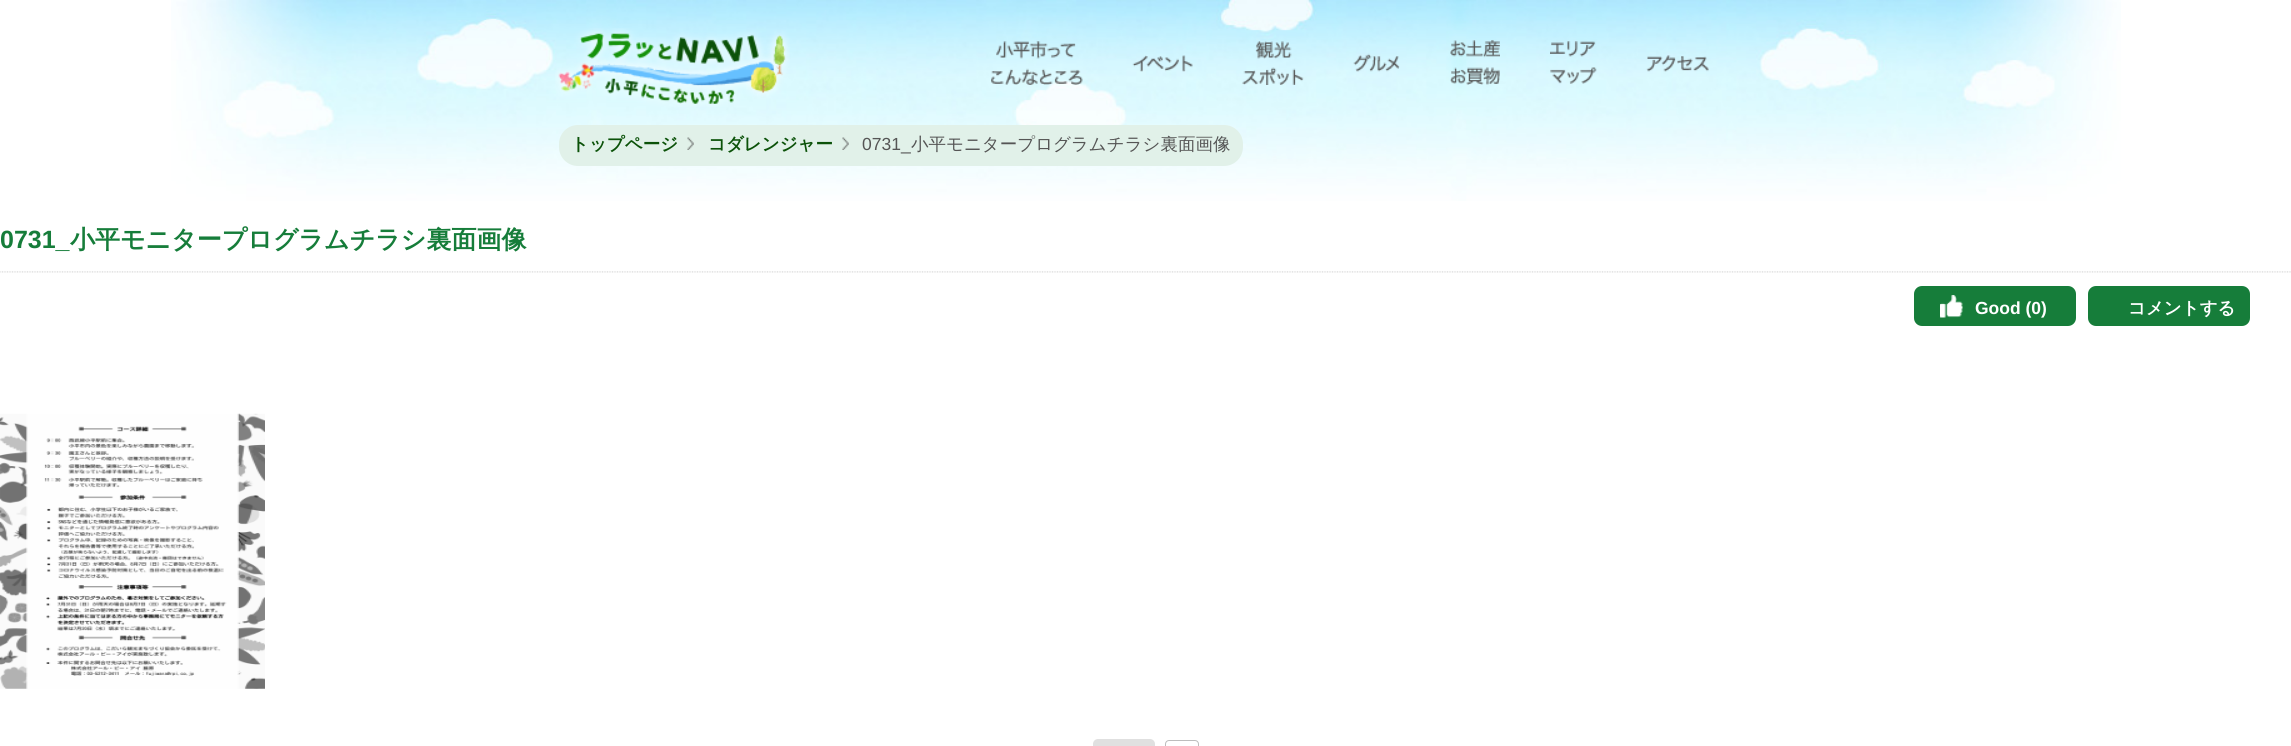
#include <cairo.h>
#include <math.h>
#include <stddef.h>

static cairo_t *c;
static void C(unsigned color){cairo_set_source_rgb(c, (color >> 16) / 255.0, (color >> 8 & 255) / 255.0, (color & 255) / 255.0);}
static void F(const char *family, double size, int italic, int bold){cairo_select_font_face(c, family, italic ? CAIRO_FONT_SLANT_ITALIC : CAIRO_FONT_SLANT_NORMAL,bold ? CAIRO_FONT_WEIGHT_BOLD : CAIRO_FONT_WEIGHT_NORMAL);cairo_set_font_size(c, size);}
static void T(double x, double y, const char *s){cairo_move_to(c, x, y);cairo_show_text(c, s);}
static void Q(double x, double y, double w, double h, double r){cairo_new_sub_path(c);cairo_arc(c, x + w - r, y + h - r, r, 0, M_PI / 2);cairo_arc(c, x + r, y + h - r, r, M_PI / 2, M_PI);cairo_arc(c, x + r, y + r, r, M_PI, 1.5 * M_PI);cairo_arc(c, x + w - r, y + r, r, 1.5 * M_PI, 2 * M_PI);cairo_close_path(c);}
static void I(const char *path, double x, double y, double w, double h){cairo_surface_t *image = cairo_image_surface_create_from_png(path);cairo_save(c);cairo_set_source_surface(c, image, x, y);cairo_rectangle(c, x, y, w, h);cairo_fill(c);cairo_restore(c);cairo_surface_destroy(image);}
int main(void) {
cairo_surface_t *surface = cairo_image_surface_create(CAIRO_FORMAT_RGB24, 2291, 746);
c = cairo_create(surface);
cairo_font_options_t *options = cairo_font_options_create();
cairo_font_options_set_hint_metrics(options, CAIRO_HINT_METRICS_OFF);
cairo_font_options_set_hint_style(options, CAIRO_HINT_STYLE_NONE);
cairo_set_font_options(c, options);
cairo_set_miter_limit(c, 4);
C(0xffffff);
cairo_paint(c);
I("1.png",171,0,1950,201);
I("2.png",555,28,235,79);
I("3.png",991,41,92,44);
I("4.png",1132,55,61,17);
I("5.png",1242,41,62,44);
I("6.png",1353,53,47,19);
I("7.png",1450,40,50,45);
I("8.png",1550,41,47,43);
I("9.png",1646,55,63,17);
C(0xe1f1e9);
Q(559,125,684,41,19);
cairo_fill(c);
F("WenQuanYi Zen Hei",17.5,0,1);
C(0x0b5209);
T(571,150,"トップページ");
I("10.png",687,137,7,13);
T(708,150,"コダレンジャー");
I("10.png",842,137,7,13);
F("Liberation Sans",17.5,0,0);
C(0x555555);
T(862,150,"0731_");
F("WenQuanYi Zen Hei Medium",17.5,0,0);
T(911,150,"小平モニタープログラムチラシ裏面画像");
I("11.png",0,271,2291,2);
F("Liberation Sans",25,0,1);
C(0x167d3a);
T(0,248,"0731_");
F("WenQuanYi Zen Hei",25,0,1);
T(70,248,"小平モニタープログラムチラシ裏面画像");
Q(1915.5,287.5,159,37,6.5);
cairo_fill_preserve(c);
cairo_set_line_width(c,3);
cairo_stroke(c);
I("12.png",1940,295,23,23);
F("Liberation Sans",17.5,0,1);
C(0xffffff);
T(1975,314,"Good (0)");
C(0x167d3a);
Q(2089.5,287.5,159,37,6.5);
cairo_fill_preserve(c);
cairo_stroke(c);
F("WenQuanYi Zen Hei",17.5,0,1);
C(0xffffff);
T(2128,314,"コメントする");
I("13.png",0,413,265,276);
C(0xe0e0e0);
Q(1093,739,62,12,5);
cairo_fill(c);
Q(1165.5,740.5,33,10,3.5);
C(0xbdbdbd);
cairo_set_line_width(c,1);
cairo_stroke(c);
cairo_surface_write_to_png(surface, "o.png");
cairo_font_options_destroy(options);
cairo_destroy(c);
cairo_surface_destroy(surface);
return 0;
}
